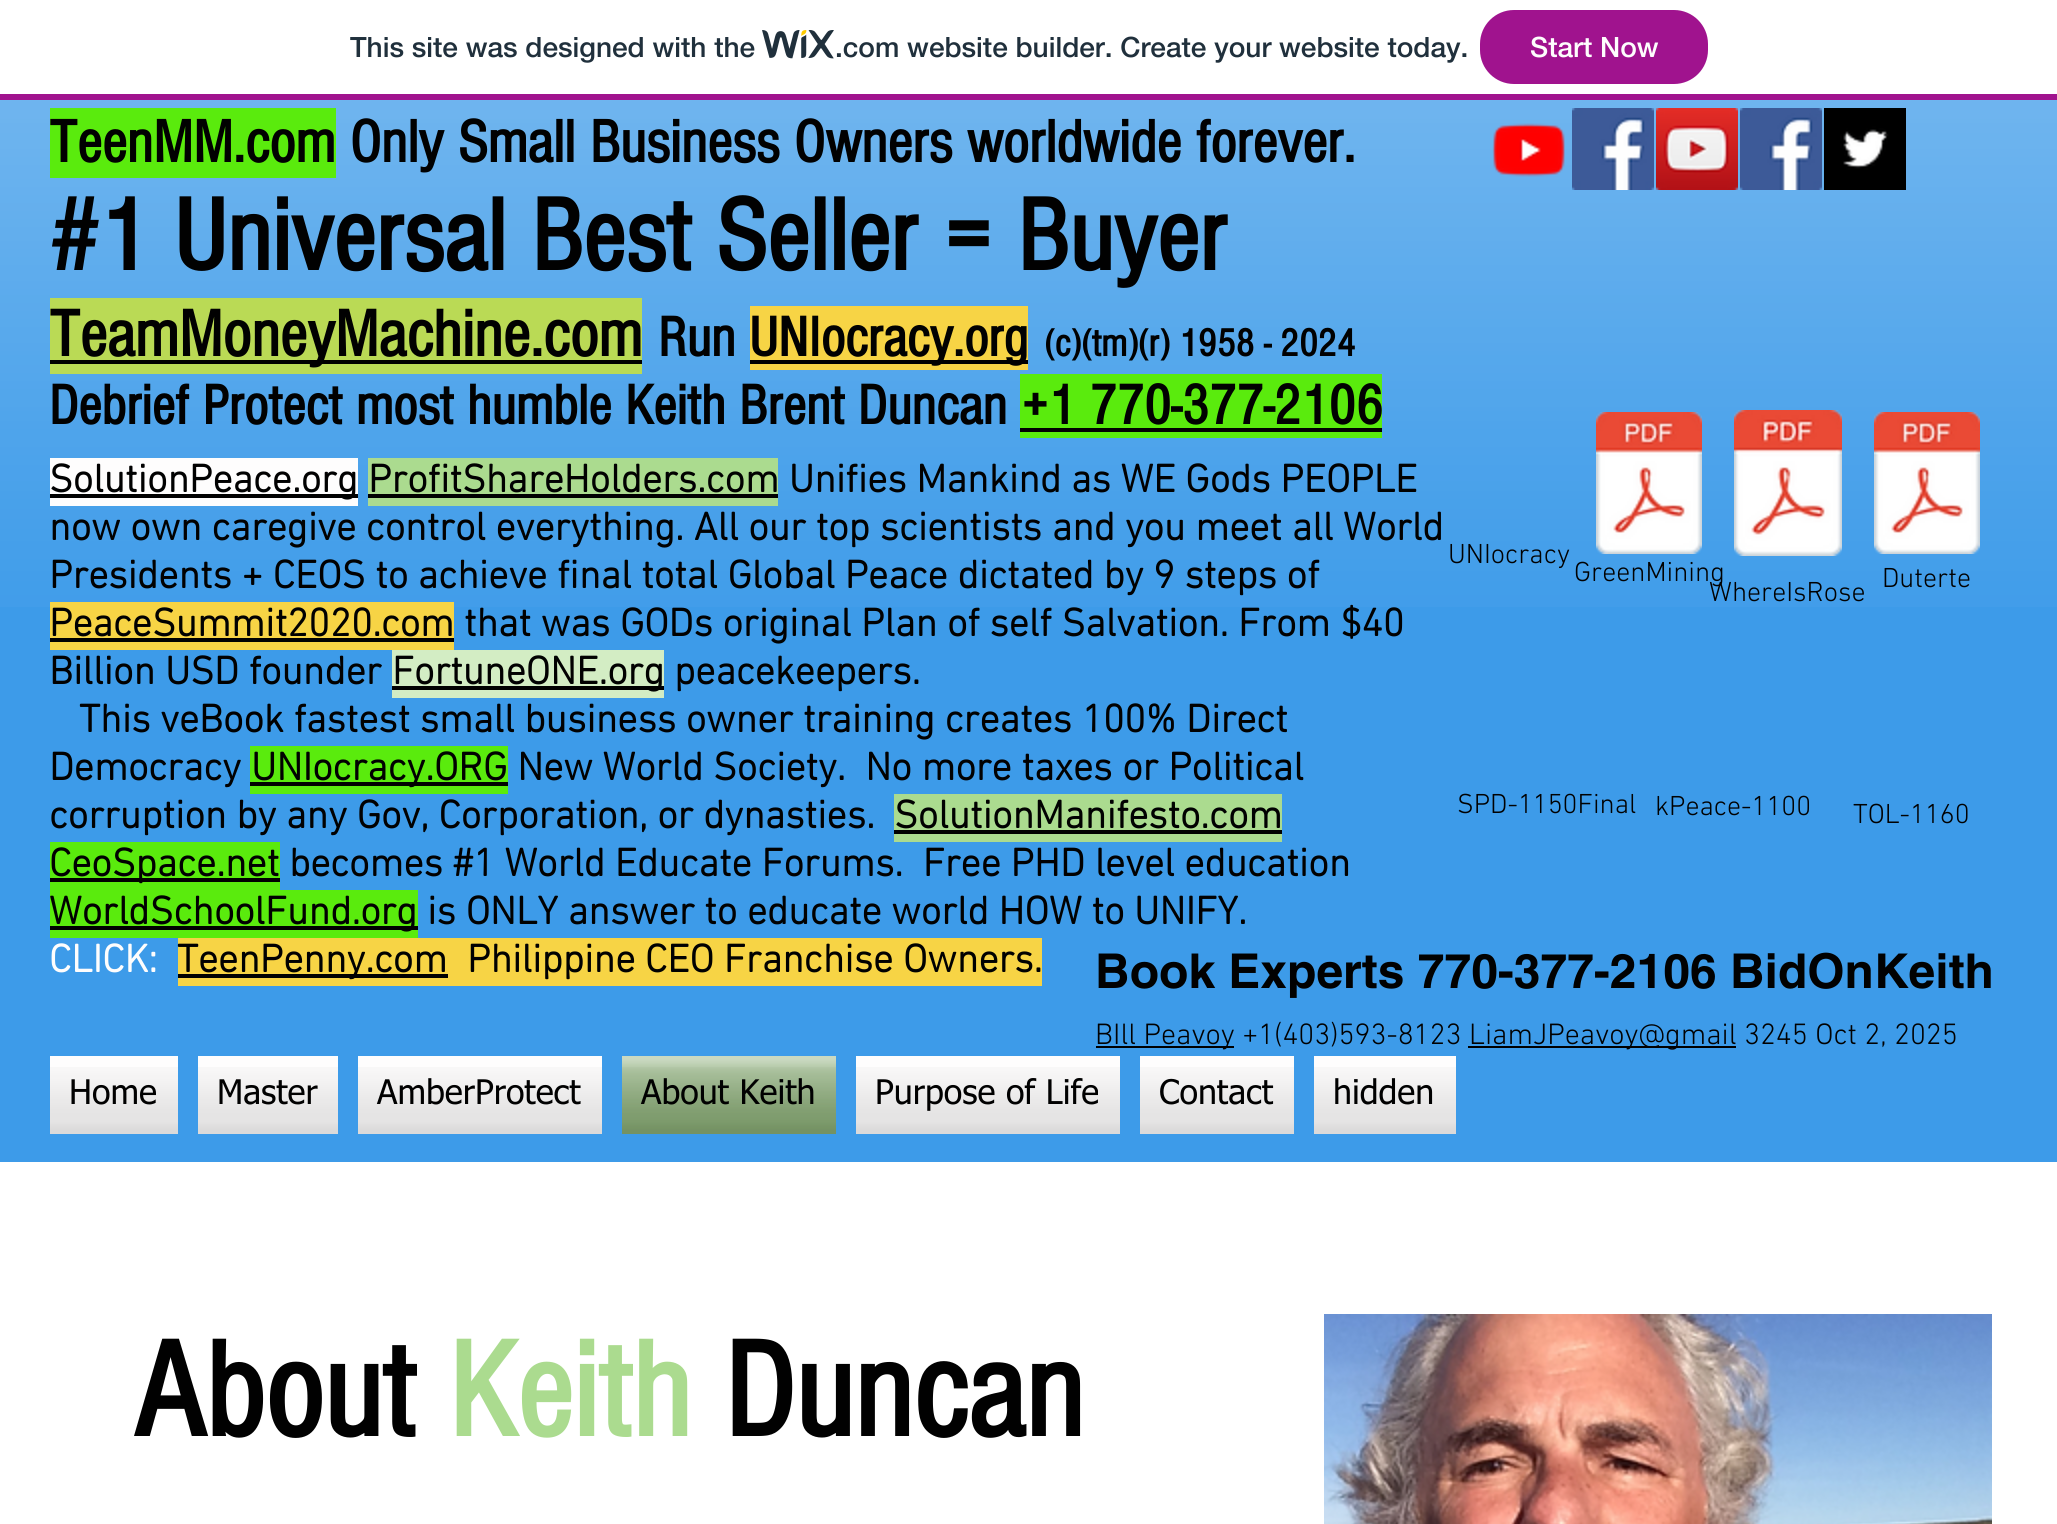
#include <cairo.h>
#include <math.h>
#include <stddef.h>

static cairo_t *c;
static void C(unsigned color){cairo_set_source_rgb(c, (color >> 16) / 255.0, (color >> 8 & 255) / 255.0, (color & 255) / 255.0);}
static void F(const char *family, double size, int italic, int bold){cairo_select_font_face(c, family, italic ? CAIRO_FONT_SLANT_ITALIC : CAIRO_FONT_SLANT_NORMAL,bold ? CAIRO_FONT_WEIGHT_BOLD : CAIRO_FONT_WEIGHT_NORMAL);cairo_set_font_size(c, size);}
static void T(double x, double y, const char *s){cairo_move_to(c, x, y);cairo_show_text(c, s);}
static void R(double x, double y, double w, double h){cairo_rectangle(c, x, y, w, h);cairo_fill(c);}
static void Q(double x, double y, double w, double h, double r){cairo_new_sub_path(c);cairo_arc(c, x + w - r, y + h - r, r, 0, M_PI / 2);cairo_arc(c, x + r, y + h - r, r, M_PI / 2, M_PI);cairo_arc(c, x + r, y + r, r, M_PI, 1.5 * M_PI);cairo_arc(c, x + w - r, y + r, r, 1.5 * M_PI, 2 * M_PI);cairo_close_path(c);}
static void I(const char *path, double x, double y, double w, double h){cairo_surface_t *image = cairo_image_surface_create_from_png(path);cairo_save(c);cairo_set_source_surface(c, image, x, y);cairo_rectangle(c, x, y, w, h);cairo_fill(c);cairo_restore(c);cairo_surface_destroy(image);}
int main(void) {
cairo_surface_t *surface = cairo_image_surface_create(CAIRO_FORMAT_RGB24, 2057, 1524);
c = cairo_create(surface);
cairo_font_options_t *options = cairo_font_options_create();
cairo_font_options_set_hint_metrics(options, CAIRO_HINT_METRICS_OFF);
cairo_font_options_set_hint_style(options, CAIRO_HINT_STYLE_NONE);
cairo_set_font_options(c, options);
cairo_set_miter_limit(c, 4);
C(0xffffff);
cairo_paint(c);
C(0xa0138e);
R(0,94,2057,6);
F("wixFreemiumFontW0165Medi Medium",28,0,0);
C(0x20303c);
T(350,57,"This site was designed with the");
I("1.png",762,30,72,29);
T(835,57,".com website builder. Create your website today.");
C(0xa0138e);
Q(1481,11,226,72,33);
cairo_fill_preserve(c);
cairo_stroke(c);
C(0xfefdfd);
T(1530,57,"Start Now");
C(0x3d9be9);
R(0,100,2057,1062);
I("2.png",0,100,2057,507);
C(0x5aeb0d);
R(50,108,286,70);
F("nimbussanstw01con",62,0,1);
C(0x010101);
T(49,162,"TeenMM.com Only Small Business Owners worldwide forever.");
F("nimbussanstw01con",106,0,1);
T(49,270,"#1 Universal Best Seller = Buyer");
C(0xbada55);
R(50,298,592,76);
C(0x000000);
R(50,360,592,4);
F("nimbussanstw01con",68,0,1);
C(0x010101);
T(49,356,"TeamMoneyMachine.com");
F("nimbussanstw01con",58,0,1);
T(658,356,"Run");
C(0xf7d445);
R(750,306,278,64);
C(0x010101);
R(750,360,278,4);
T(749,356,"UNIocracy.org");
F("nimbussanstw01con",40,0,1);
T(1044,356,"(c)(tm)(r) 1958 - 2024");
F("nimbussanstw01con",58,0,1);
T(49,424,"Debrief Protect most humble Keith Brent Duncan");
C(0x5aeb0d);
R(1020,374,362,64);
C(0x010101);
T(1021,424,"+1 770-377-2106");
R(1020,428,362,4);
I("3.png",1492,123,73,54);
I("4.png",1572,108,82,82);
I("5.png",1656,108,82,82);
I("4.png",1740,108,82,82);
I("6.png",1824,108,82,82);
C(0xfefdfd);
R(50,458,308,48);
C(0x010101);
R(50,494,308,4);
F("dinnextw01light",40,0,1);
T(49,492,"SolutionPeace.org");
C(0xabdb8f);
R(368,458,410,48);
C(0x010101);
T(368,492,"ProfitShareHolders.com Unifies Mankind as WE Gods PEOPLE");
R(368,494,410,4);
T(49,540,"now own caregive control everything. All our top scientists and you meet all World");
T(49,588,"Presidents + CEOS to achieve final total Global Peace dictated by 9 steps of");
C(0xf7d445);
R(50,602,404,48);
C(0x010101);
R(50,638,404,4);
T(49,636,"PeaceSummit2020.com that was GODs original Plan of self Salvation. From $40");
T(49,684,"Billion USD founder");
C(0xd3edc4);
R(392,650,272,48);
C(0x010101);
R(392,686,272,4);
T(392,684,"FortuneONE.org peacekeepers.");
T(79,732,"This veBook fastest small business owner training creates 100% Direct");
T(49,780,"Democracy");
C(0x5aeb0d);
R(250,746,258,48);
C(0x010101);
R(250,782,258,4);
T(251,780,"UNIocracy.ORG New World Society.  No more taxes or Political");
T(49,828,"corruption by any Gov, Corporation, or dynasties.");
C(0xabdb8f);
R(894,794,388,48);
C(0x010101);
T(894,828,"SolutionManifesto.com");
R(894,830,388,4);
C(0x5aeb0d);
R(50,842,230,48);
C(0x010101);
R(50,878,230,4);
T(49,876,"CeoSpace.net becomes #1 World Educate Forums.  Free PHD level education");
C(0x5aeb0d);
R(50,890,368,48);
C(0x010101);
R(50,926,368,4);
T(49,924,"WorldSchoolFund.org is ONLY answer to educate world HOW to UNIFY.");
C(0xfefdfd);
T(49,972,"CLICK:");
C(0xf7d445);
R(178,938,864,48);
C(0x010101);
R(178,974,270,4);
T(177,972,"TeenPenny.com");
T(467,972,"Philippine CEO Franchise Owners.");
F("dinnextw01light Light",28,0,0);
T(1448,563,"UNIocracy");
I("7.png",1596,412,106,142);
T(1574,581,"GreenMining");
I("7.png",1874,412,106,142);
T(1882,587,"Duterte");
I("8.png",1734,410,108,146);
T(1709,601,"WhereIsRose");
T(1457,813,"SPD-1150Final");
T(1655,815,"kPeace-1100");
T(1853,823,"TOL-1160");
F("helvetica",48,0,1);
T(1095,988,"Book Experts 770-377-2106 BidOnKeith");
C(0x000000);
R(1096,1046,138,2);
F("dinnextw01light Light",30,0,0);
C(0x010101);
T(1095,1044,"BIll Peavoy +1(403)593-8123");
C(0x000000);
R(1468,1046,268,2);
C(0x010101);
T(1469,1044,"LiamJPeavoy@gmail 3245 Oct 2, 2025");
C(0xfefdfd);
R(50,1056,128,78);
I("9.png",50,1067,128,67);
F("tahoma",34,0,0);
C(0x010101);
T(69,1104,"Home");
C(0xfefdfd);
R(198,1056,140,78);
I("10.png",198,1067,140,67);
C(0x010101);
T(217,1104,"Master");
C(0xfefdfd);
R(358,1056,244,78);
I("11.png",358,1067,244,67);
C(0x010101);
T(377,1104,"AmberProtect");
C(0x80a46b);
R(622,1056,214,78);
I("12.png",622,1056,214,78);
I("13.png",622,1067,214,67);
C(0x010101);
T(641,1104,"About Keith");
C(0xfefdfd);
R(856,1056,264,78);
I("14.png",856,1067,264,67);
C(0x010101);
T(875,1104,"Purpose of Life");
C(0xfefdfd);
R(1140,1056,154,78);
I("15.png",1140,1067,154,67);
C(0x010101);
T(1159,1104,"Contact");
C(0xfefdfd);
R(1314,1056,142,78);
I("16.png",1314,1067,142,67);
C(0x010101);
T(1333,1104,"hidden");
F("nimbussanstw01con",140,0,1);
T(133,1436,"About");
C(0xabdb8f);
T(448,1436,"Keith");
C(0x010101);
T(724,1436,"Duncan");
I("17.png",1324,1314,668,210);
cairo_surface_write_to_png(surface, "o.png");
cairo_font_options_destroy(options);
cairo_destroy(c);
cairo_surface_destroy(surface);
return 0;
}
